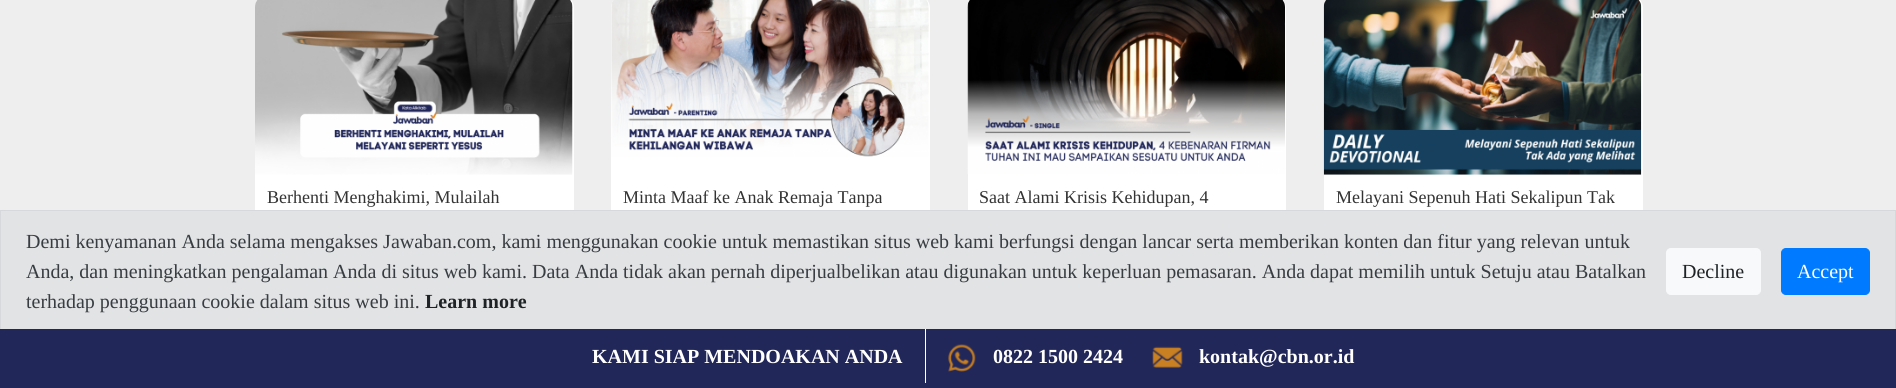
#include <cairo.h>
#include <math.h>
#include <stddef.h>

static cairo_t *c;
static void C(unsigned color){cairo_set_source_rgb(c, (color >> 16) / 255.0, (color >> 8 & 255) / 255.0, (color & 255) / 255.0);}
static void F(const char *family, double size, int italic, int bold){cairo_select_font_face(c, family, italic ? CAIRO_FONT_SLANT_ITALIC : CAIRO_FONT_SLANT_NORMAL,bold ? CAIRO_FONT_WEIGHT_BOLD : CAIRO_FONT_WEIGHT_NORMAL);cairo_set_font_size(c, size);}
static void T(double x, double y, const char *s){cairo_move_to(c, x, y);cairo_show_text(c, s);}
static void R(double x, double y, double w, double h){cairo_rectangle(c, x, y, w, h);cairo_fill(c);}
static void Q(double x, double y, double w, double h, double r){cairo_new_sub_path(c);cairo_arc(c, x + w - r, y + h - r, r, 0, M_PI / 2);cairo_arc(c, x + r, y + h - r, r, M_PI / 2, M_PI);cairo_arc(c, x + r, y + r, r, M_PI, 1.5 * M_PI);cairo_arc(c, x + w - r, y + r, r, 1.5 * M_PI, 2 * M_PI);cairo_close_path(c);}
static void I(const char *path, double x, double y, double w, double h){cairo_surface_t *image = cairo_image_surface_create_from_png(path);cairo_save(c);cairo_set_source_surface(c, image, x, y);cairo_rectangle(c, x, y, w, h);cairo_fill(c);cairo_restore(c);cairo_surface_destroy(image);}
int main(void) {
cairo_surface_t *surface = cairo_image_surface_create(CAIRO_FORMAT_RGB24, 1896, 388);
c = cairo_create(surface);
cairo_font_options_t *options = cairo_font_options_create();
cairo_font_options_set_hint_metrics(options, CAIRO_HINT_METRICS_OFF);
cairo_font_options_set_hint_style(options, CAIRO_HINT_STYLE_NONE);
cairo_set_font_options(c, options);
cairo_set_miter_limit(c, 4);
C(0xeeeeee);
cairo_paint(c);
C(0xffffff);
Q(255,-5,319,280,13);
cairo_fill(c);
I("1.png",255,0,318,175);
F("Liberation Serif",18,0,0);
C(0x333333);
T(267,203,"Berhenti Menghakimi, Mulailah");
C(0xffffff);
Q(611,-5,319,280,13);
cairo_fill(c);
I("2.png",611,0,318,157);
C(0x333333);
T(623,203,"Minta Maaf ke Anak Remaja Tanpa");
C(0xffffff);
Q(968,-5,318,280,13);
cairo_fill(c);
I("3.png",967,0,318,174);
C(0x333333);
T(979,203,"Saat Alami Krisis Kehidupan, 4");
C(0xffffff);
Q(1324,-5,319,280,13);
cairo_fill(c);
I("4.png",1323,0,319,175);
C(0x333333);
T(1336,203,"Melayani Sepenuh Hati Sekalipun Tak");
C(0xe2e3e5);
R(1,211,1894,118);
cairo_rectangle(c,.5,210.5,1895,122);
C(0xd6d8db);
cairo_set_line_width(c,1);
cairo_stroke(c);
F("Liberation Serif",20,0,0);
C(0x383d41);
T(26,248,"Demi kenyamanan Anda selama mengakses Jawaban.com, kami menggunakan cookie untuk memastikan situs web kami berfungsi dengan lancar serta memberikan konten dan fitur yang relevan untuk");
T(26,278,"Anda, dan meningkatkan pengalaman Anda di situs web kami. Data Anda tidak akan pernah diperjualbelikan atau digunakan untuk keperluan pemasaran. Anda dapat memilih untuk Setuju atau Batalkan");
T(26,308,"terhadap penggunaan cookie dalam situs web ini.");
F("Liberation Serif",20,0,1);
C(0x202326);
T(425,308,"Learn more");
C(0xf8f9fa);
Q(1666.5,248.5,94,46,4.5);
cairo_fill_preserve(c);
cairo_stroke(c);
F("Liberation Serif",20,0,0);
C(0x202326);
T(1682,278,"Decline");
C(0x007bff);
Q(1781.5,248.5,88,46,4.5);
cairo_fill_preserve(c);
cairo_stroke(c);
C(0xffffff);
T(1797,278,"Accept");
C(0x22275a);
R(0,329,1896,59);
C(0xffffff);
R(925,329,1,54);
F("Liberation Serif",20,0,1);
T(592,363,"KAMI SIAP MENDOAKAN ANDA");
I("5.png",948,344,28,28);
T(993,363,"0822 1500 2424");
I("6.png",1152,346,31,22);
T(1199,363,"kontak@cbn.or.id");
cairo_surface_write_to_png(surface, "o.png");
cairo_font_options_destroy(options);
cairo_destroy(c);
cairo_surface_destroy(surface);
return 0;
}
